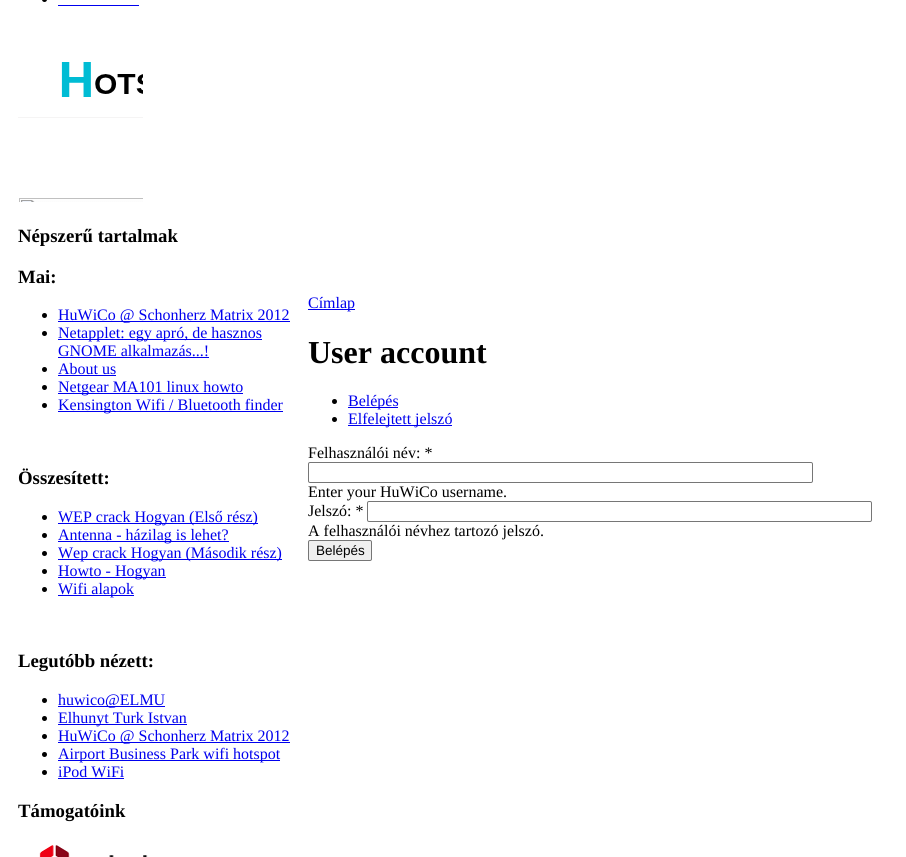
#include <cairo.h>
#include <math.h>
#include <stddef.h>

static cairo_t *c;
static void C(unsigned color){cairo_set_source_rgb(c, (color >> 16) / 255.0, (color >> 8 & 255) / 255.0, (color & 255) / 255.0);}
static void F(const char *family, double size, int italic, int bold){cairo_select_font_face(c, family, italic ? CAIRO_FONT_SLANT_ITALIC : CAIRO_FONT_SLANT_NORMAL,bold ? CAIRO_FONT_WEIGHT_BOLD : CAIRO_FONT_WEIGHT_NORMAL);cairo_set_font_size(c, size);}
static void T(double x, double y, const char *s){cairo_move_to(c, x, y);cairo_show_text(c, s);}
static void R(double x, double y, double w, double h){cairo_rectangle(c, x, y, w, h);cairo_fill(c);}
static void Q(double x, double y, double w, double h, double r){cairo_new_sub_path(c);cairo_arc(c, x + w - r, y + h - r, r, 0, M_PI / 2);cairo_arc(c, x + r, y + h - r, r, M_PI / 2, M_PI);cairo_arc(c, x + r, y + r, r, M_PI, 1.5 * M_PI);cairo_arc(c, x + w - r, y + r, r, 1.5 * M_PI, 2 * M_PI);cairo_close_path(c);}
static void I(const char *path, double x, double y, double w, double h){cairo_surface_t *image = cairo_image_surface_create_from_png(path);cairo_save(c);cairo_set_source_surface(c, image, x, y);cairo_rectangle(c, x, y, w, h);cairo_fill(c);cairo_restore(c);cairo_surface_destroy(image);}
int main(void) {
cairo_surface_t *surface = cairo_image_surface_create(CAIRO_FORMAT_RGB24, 906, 857);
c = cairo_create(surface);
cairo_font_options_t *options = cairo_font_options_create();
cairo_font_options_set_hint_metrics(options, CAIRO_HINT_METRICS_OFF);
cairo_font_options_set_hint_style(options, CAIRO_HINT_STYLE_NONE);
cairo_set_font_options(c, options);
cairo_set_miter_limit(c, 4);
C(0xffffff);
cairo_paint(c);
C(0x000000);
cairo_arc(c,44.5,-.5,2.5,0,2 * M_PI);
cairo_fill(c);
C(0x0000ee);
R(58,5,81,1);
I("1.png",18,62,125,140);
F("Liberation Serif",18.75,0,1);
C(0x000000);
T(18,242,"Népszerű tartalmak");
T(18,283,"Mai:");
cairo_new_path(c);
cairo_arc(c,44.5,315.5,2.5,0,2 * M_PI);
cairo_fill(c);
C(0x0000ee);
R(58,321,232,1);
F("Liberation Serif",16,0,0);
T(58,320,"HuWiCo @ Schonherz Matrix 2012");
C(0x000000);
cairo_new_path(c);
cairo_arc(c,44.5,333.5,2.5,0,2 * M_PI);
cairo_fill(c);
C(0x0000ee);
R(58,339,204,1);
T(58,338,"Netapplet: egy apró, de hasznos");
T(58,356,"GNOME alkalmazás...!");
R(58,357,151,1);
C(0x000000);
cairo_new_path(c);
cairo_arc(c,44.5,369.5,2.5,0,2 * M_PI);
cairo_fill(c);
C(0x0000ee);
T(58,374,"About us");
R(58,375,58,1);
C(0x000000);
cairo_new_path(c);
cairo_arc(c,44.5,387.5,2.5,0,2 * M_PI);
cairo_fill(c);
C(0x0000ee);
R(58,393,185,1);
T(58,392,"Netgear MA101 linux howto");
C(0x000000);
cairo_new_path(c);
cairo_arc(c,44.5,405.5,2.5,0,2 * M_PI);
cairo_fill(c);
C(0x0000ee);
R(58,411,225,1);
T(58,410,"Kensington Wifi / Bluetooth finder");
F("Liberation Serif",18.75,0,1);
C(0x000000);
T(18,484,"Összesített:");
cairo_new_path(c);
cairo_arc(c,44.5,517.5,2.5,0,2 * M_PI);
cairo_fill(c);
C(0x0000ee);
R(58,523,200,1);
F("Liberation Serif",16,0,0);
T(58,522,"WEP crack Hogyan (Első rész)");
C(0x000000);
cairo_new_path(c);
cairo_arc(c,44.5,535.5,2.5,0,2 * M_PI);
cairo_fill(c);
C(0x0000ee);
R(58,541,171,1);
T(58,540,"Antenna - házilag is lehet?");
C(0x000000);
cairo_new_path(c);
cairo_arc(c,44.5,553.5,2.5,0,2 * M_PI);
cairo_fill(c);
C(0x0000ee);
R(58,559,224,1);
T(58,558,"Wep crack Hogyan (Második rész)");
C(0x000000);
cairo_new_path(c);
cairo_arc(c,44.5,571.5,2.5,0,2 * M_PI);
cairo_fill(c);
C(0x0000ee);
R(58,577,108,1);
T(58,576,"Howto - Hogyan");
C(0x000000);
cairo_new_path(c);
cairo_arc(c,44.5,589.5,2.5,0,2 * M_PI);
cairo_fill(c);
C(0x0000ee);
R(58,595,76,1);
T(58,594,"Wifi alapok");
F("Liberation Serif",18.75,0,1);
C(0x000000);
T(18,667,"Legutóbb nézett:");
cairo_new_path(c);
cairo_arc(c,44.5,700.5,2.5,0,2 * M_PI);
cairo_fill(c);
C(0x0000ee);
R(58,706,107,1);
F("Liberation Serif",16,0,0);
T(58,705,"huwico@ELMU");
C(0x000000);
cairo_new_path(c);
cairo_arc(c,44.5,718.5,2.5,0,2 * M_PI);
cairo_fill(c);
C(0x0000ee);
R(58,724,129,1);
T(58,723,"Elhunyt Turk Istvan");
C(0x000000);
cairo_new_path(c);
cairo_arc(c,44.5,736.5,2.5,0,2 * M_PI);
cairo_fill(c);
C(0x0000ee);
R(58,742,232,1);
T(58,741,"HuWiCo @ Schonherz Matrix 2012");
C(0x000000);
cairo_new_path(c);
cairo_arc(c,44.5,754.5,2.5,0,2 * M_PI);
cairo_fill(c);
C(0x0000ee);
R(58,760,222,1);
T(58,759,"Airport Business Park wifi hotspot");
C(0x000000);
cairo_new_path(c);
cairo_arc(c,44.5,772.5,2.5,0,2 * M_PI);
cairo_fill(c);
C(0x0000ee);
T(58,777,"iPod WiFi");
R(58,778,66,1);
F("Liberation Serif",18.75,0,1);
C(0x000000);
T(18,817,"Támogatóink");
I("2.png",39,845,109,12);
C(0x0000ee);
R(308,309,47,1);
F("Liberation Serif",16,0,0);
T(308,308,"Címlap");
F("Liberation Serif",32,0,1);
C(0x000000);
T(308,363,"User account");
cairo_new_path(c);
cairo_arc(c,334.5,401.5,2.5,0,2 * M_PI);
cairo_fill(c);
C(0x0000ee);
R(348,407,50,1);
F("Liberation Serif",16,0,0);
T(348,406,"Belépés");
C(0x000000);
cairo_new_path(c);
cairo_arc(c,334.5,419.5,2.5,0,2 * M_PI);
cairo_fill(c);
C(0x0000ee);
R(348,425,104,1);
T(348,424,"Elfelejtett jelszó");
C(0x000000);
T(308,458,"Felhasználói név: *");
Q(308.5,462.5,504,20,1.5);
C(0x767676);
cairo_set_line_width(c,1);
cairo_stroke(c);
C(0x000000);
T(308,497,"Enter your HuWiCo username.");
T(308,516,"Jelszó: *");
Q(367.5,501.5,504,20,1.5);
C(0x767676);
cairo_stroke(c);
C(0x000000);
T(308,536,"A felhasználói névhez tartozó jelszó.");
C(0xefefef);
Q(308.5,540.5,63,20,1.5);
cairo_fill_preserve(c);
C(0x767676);
cairo_stroke(c);
F("Liberation Sans",13.5,0,0);
C(0x000000);
T(316,555,"Belépés");
cairo_surface_write_to_png(surface, "o.png");
cairo_font_options_destroy(options);
cairo_destroy(c);
cairo_surface_destroy(surface);
return 0;
}
